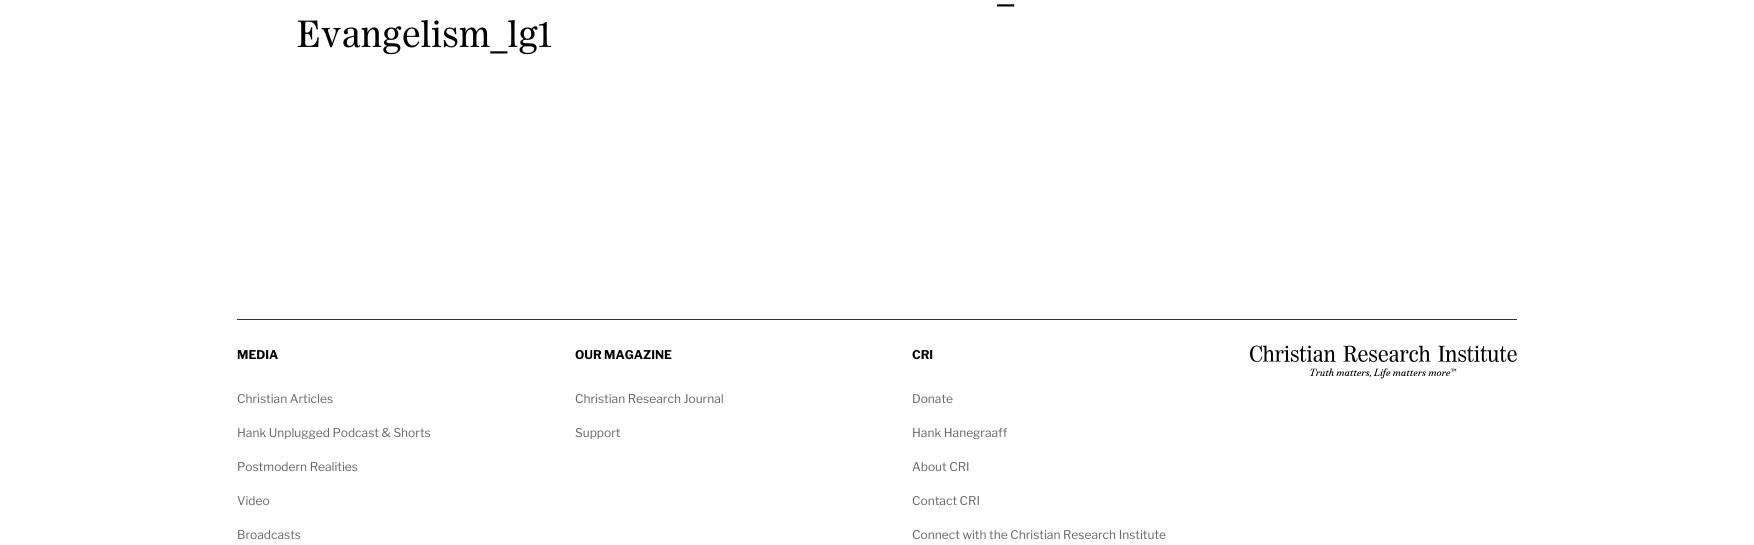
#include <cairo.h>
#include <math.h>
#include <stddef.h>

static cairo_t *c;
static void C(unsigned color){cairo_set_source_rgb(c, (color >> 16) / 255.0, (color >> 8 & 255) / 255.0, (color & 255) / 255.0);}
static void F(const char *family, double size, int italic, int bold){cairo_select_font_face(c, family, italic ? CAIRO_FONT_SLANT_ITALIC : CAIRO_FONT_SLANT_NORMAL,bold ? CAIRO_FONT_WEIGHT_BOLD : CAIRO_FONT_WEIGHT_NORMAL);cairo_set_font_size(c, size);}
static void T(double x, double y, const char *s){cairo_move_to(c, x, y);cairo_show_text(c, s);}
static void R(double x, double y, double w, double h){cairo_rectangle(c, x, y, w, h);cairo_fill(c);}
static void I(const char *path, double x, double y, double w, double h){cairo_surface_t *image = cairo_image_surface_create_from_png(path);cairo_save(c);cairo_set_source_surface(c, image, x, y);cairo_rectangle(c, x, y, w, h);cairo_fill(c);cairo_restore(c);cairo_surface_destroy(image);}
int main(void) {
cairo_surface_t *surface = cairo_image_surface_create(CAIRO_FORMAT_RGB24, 1754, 545);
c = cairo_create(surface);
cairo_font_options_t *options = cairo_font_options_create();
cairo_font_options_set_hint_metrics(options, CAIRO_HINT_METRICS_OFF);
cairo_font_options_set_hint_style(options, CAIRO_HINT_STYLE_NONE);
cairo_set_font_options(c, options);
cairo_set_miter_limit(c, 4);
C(0xffffff);
cairo_paint(c);
F("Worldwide",36,0,0);
C(0x000000);
T(997,0,"_");
T(297,47,"Evangelism_lg1");
C(0x333333);
R(237,319,1280,1);
F("Libre Franklin",12,0,1);
C(0x000000);
T(237,359,"MEDIA");
F("Libre Franklin",12,0,0);
C(0x666666);
T(237,403,"Christian Articles");
T(237,437,"Hank Unplugged Podcast & Shorts");
T(237,471,"Postmodern Realities");
T(237,505,"Video");
T(237,539,"Broadcasts");
F("Libre Franklin",12,0,1);
C(0x000000);
T(575,359,"OUR MAGAZINE");
F("Libre Franklin",12,0,0);
C(0x666666);
T(575,403,"Christian Research Journal");
T(575,437,"Support");
F("Libre Franklin",12,0,1);
C(0x000000);
T(912,359,"CRI");
F("Libre Franklin",12,0,0);
C(0x666666);
T(912,403,"Donate");
T(912,437,"Hank Hanegraaff");
T(912,471,"About CRI");
T(912,505,"Contact CRI");
T(912,539,"Connect with the Christian Research Institute");
I("1.png",1250,345,267,34);
cairo_surface_write_to_png(surface, "o.png");
cairo_font_options_destroy(options);
cairo_destroy(c);
cairo_surface_destroy(surface);
return 0;
}
